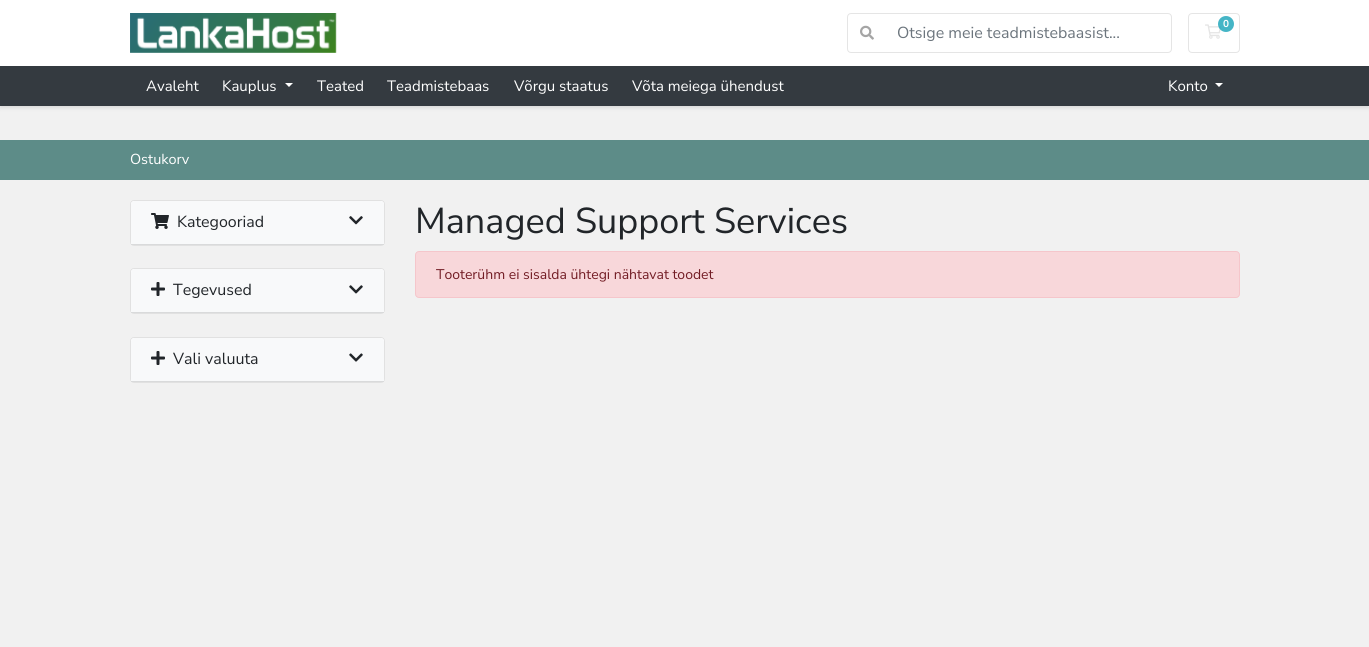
#include <cairo.h>
#include <math.h>
#include <stddef.h>

static cairo_t *c;
static void C(unsigned color){cairo_set_source_rgb(c, (color >> 16) / 255.0, (color >> 8 & 255) / 255.0, (color & 255) / 255.0);}
static void F(const char *family, double size, int italic, int bold){cairo_select_font_face(c, family, italic ? CAIRO_FONT_SLANT_ITALIC : CAIRO_FONT_SLANT_NORMAL,bold ? CAIRO_FONT_WEIGHT_BOLD : CAIRO_FONT_WEIGHT_NORMAL);cairo_set_font_size(c, size);}
static void T(double x, double y, const char *s){cairo_move_to(c, x, y);cairo_show_text(c, s);}
static void R(double x, double y, double w, double h){cairo_rectangle(c, x, y, w, h);cairo_fill(c);}
static void Q(double x, double y, double w, double h, double r){cairo_new_sub_path(c);cairo_arc(c, x + w - r, y + h - r, r, 0, M_PI / 2);cairo_arc(c, x + r, y + h - r, r, M_PI / 2, M_PI);cairo_arc(c, x + r, y + r, r, M_PI, 1.5 * M_PI);cairo_arc(c, x + w - r, y + r, r, 1.5 * M_PI, 2 * M_PI);cairo_close_path(c);}
static void S(double x, double y, double w, double h, double r, double blur, double alpha){cairo_push_group_with_content(c, CAIRO_CONTENT_ALPHA);cairo_set_operator(c, CAIRO_OPERATOR_SOURCE);for (int i = 15; i >= -15 && fmin(w, h) + blur * i / 3 > 0; i -= 2) {double e = blur * i / 6;cairo_set_source_rgba(c, 0, 0, 0, alpha * erfc((i - 1) / 8.5) / 2);Q(x - e, y - e, w + 2 * e, h + 2 * e, fmax(0, fmin(r + e + blur * .6, fmin(w, h) / 2 + e)));cairo_fill(c);}cairo_pattern_t *soft = cairo_pop_group(c);cairo_mask(c, soft);cairo_pattern_destroy(soft);}
static void I(const char *path, double x, double y, double w, double h){cairo_surface_t *image = cairo_image_surface_create_from_png(path);cairo_save(c);cairo_set_source_surface(c, image, x, y);cairo_rectangle(c, x, y, w, h);cairo_fill(c);cairo_restore(c);cairo_surface_destroy(image);}
int main(void) {
cairo_surface_t *surface = cairo_image_surface_create(CAIRO_FORMAT_RGB24, 1369, 647);
c = cairo_create(surface);
cairo_font_options_t *options = cairo_font_options_create();
cairo_font_options_set_hint_metrics(options, CAIRO_HINT_METRICS_OFF);
cairo_font_options_set_hint_style(options, CAIRO_HINT_STYLE_NONE);
cairo_set_font_options(c, options);
cairo_set_miter_limit(c, 4);
C(0xf1f1f1);
cairo_paint(c);
C(0x000000);
S(0,2,1369,106,0,2,.1);
C(0xffffff);
R(0,0,1369,66);
I("1.png",130,13,207,40);
Q(1188.5,13.5,51,39,3.5);
C(0xe5e5e5);
cairo_set_line_width(c,1);
cairo_stroke(c);
I("2.png",1205,24,16,15);
cairo_set_source_rgba(c,0.09,0.635,0.722,0.8);
cairo_arc(c,1226,24,8,0,2 * M_PI);
cairo_fill(c);
F("Nunito Sans",10,0,1);
C(0xffffff);
T(1223,27,"0");
Q(847.5,13.5,324,39,3.5);
C(0xe5e5e5);
cairo_stroke(c);
I("3.png",860,25,14,15);
F("Nunito Sans",16,0,0);
C(0x6c757d);
T(897,38,"Otsige meie teadmistebaasist...");
C(0x343a40);
R(0,66,1369,40);
F("Nunito Sans",15,0,0);
C(0xffffff);
T(146,91,"Avaleht");
T(222,91,"Kauplus");
cairo_new_path(c);
cairo_move_to(c,285,83);
cairo_line_to(c,293,83);
cairo_line_to(c,289,87);
cairo_close_path(c);
cairo_fill(c);
T(317,91,"Teated");
T(387,91,"Teadmistebaas");
T(514,91,"Võrgu staatus");
T(632,91,"Võta meiega ühendust");
T(1168,91,"Konto");
cairo_new_path(c);
cairo_move_to(c,1215,83);
cairo_line_to(c,1223,83);
cairo_line_to(c,1219,87);
cairo_close_path(c);
cairo_fill(c);
C(0x5d8c88);
R(0,140,1369,40);
F("Nunito Sans",14.5,0,0);
C(0xffffff);
T(130,164,"Ostukorv");
Q(130,200,255,46,4);
cairo_fill(c);
Q(130.5,200.5,254,45,3.5);
cairo_set_source_rgba(c,0,0,0,0.12);
cairo_stroke(c);
C(0xf8f9fa);
cairo_new_path(c);
cairo_move_to(c,134,201);
cairo_line_to(c,381,201);
cairo_curve_to(c,382.5,201,384,202.5,384,204);
cairo_line_to(c,384,245);
cairo_line_to(c,131,245);
cairo_line_to(c,131,204);
cairo_curve_to(c,131,202.5,132.5,201,134,201);
cairo_close_path(c);
cairo_fill(c);
C(0xd9dadb);
R(131,244,253,1);
I("4.png",151,213,18,16);
F("Nunito Sans",16,0,0);
C(0x212529);
T(177,227,"Kategooriad");
I("5.png",349,216,14,9);
C(0xffffff);
Q(130,268,255,46,4);
cairo_fill(c);
Q(130.5,268.5,254,45,3.5);
cairo_set_source_rgba(c,0,0,0,0.12);
cairo_stroke(c);
C(0xf8f9fa);
cairo_new_path(c);
cairo_move_to(c,134,269);
cairo_line_to(c,381,269);
cairo_curve_to(c,382.5,269,384,270.5,384,272);
cairo_line_to(c,384,313);
cairo_line_to(c,131,313);
cairo_line_to(c,131,272);
cairo_curve_to(c,131,270.5,132.5,269,134,269);
cairo_close_path(c);
cairo_fill(c);
C(0xd9dadb);
R(131,312,253,1);
I("6.png",151,282,14,14);
C(0x212529);
T(173,295,"Tegevused");
I("7.png",349,285,14,9);
C(0xffffff);
Q(130,337,255,46,4);
cairo_fill(c);
Q(130.5,337.5,254,45,3.5);
cairo_set_source_rgba(c,0,0,0,0.12);
cairo_stroke(c);
C(0xf8f9fa);
cairo_new_path(c);
cairo_move_to(c,134,338);
cairo_line_to(c,381,338);
cairo_curve_to(c,382.5,338,384,339.5,384,341);
cairo_line_to(c,384,382);
cairo_line_to(c,131,382);
cairo_line_to(c,131,341);
cairo_curve_to(c,131,339.5,132.5,338,134,338);
cairo_close_path(c);
cairo_fill(c);
C(0xd9dadb);
R(131,381,253,1);
I("6.png",151,351,14,14);
C(0x212529);
T(173,364,"Vali valuuta");
I("8.png",349,353,14,9);
F("Nunito Sans",36,0,0);
T(415,233,"Managed Support Services");
C(0xf8d7da);
Q(415.5,251.5,824,46,3.5);
cairo_fill_preserve(c);
C(0xf5c6cb);
cairo_stroke(c);
F("Nunito Sans",14,0,0);
C(0x721c24);
T(436,279,"Tooterühm ei sisalda ühtegi nähtavat toodet");
cairo_surface_write_to_png(surface, "o.png");
cairo_font_options_destroy(options);
cairo_destroy(c);
cairo_surface_destroy(surface);
return 0;
}
